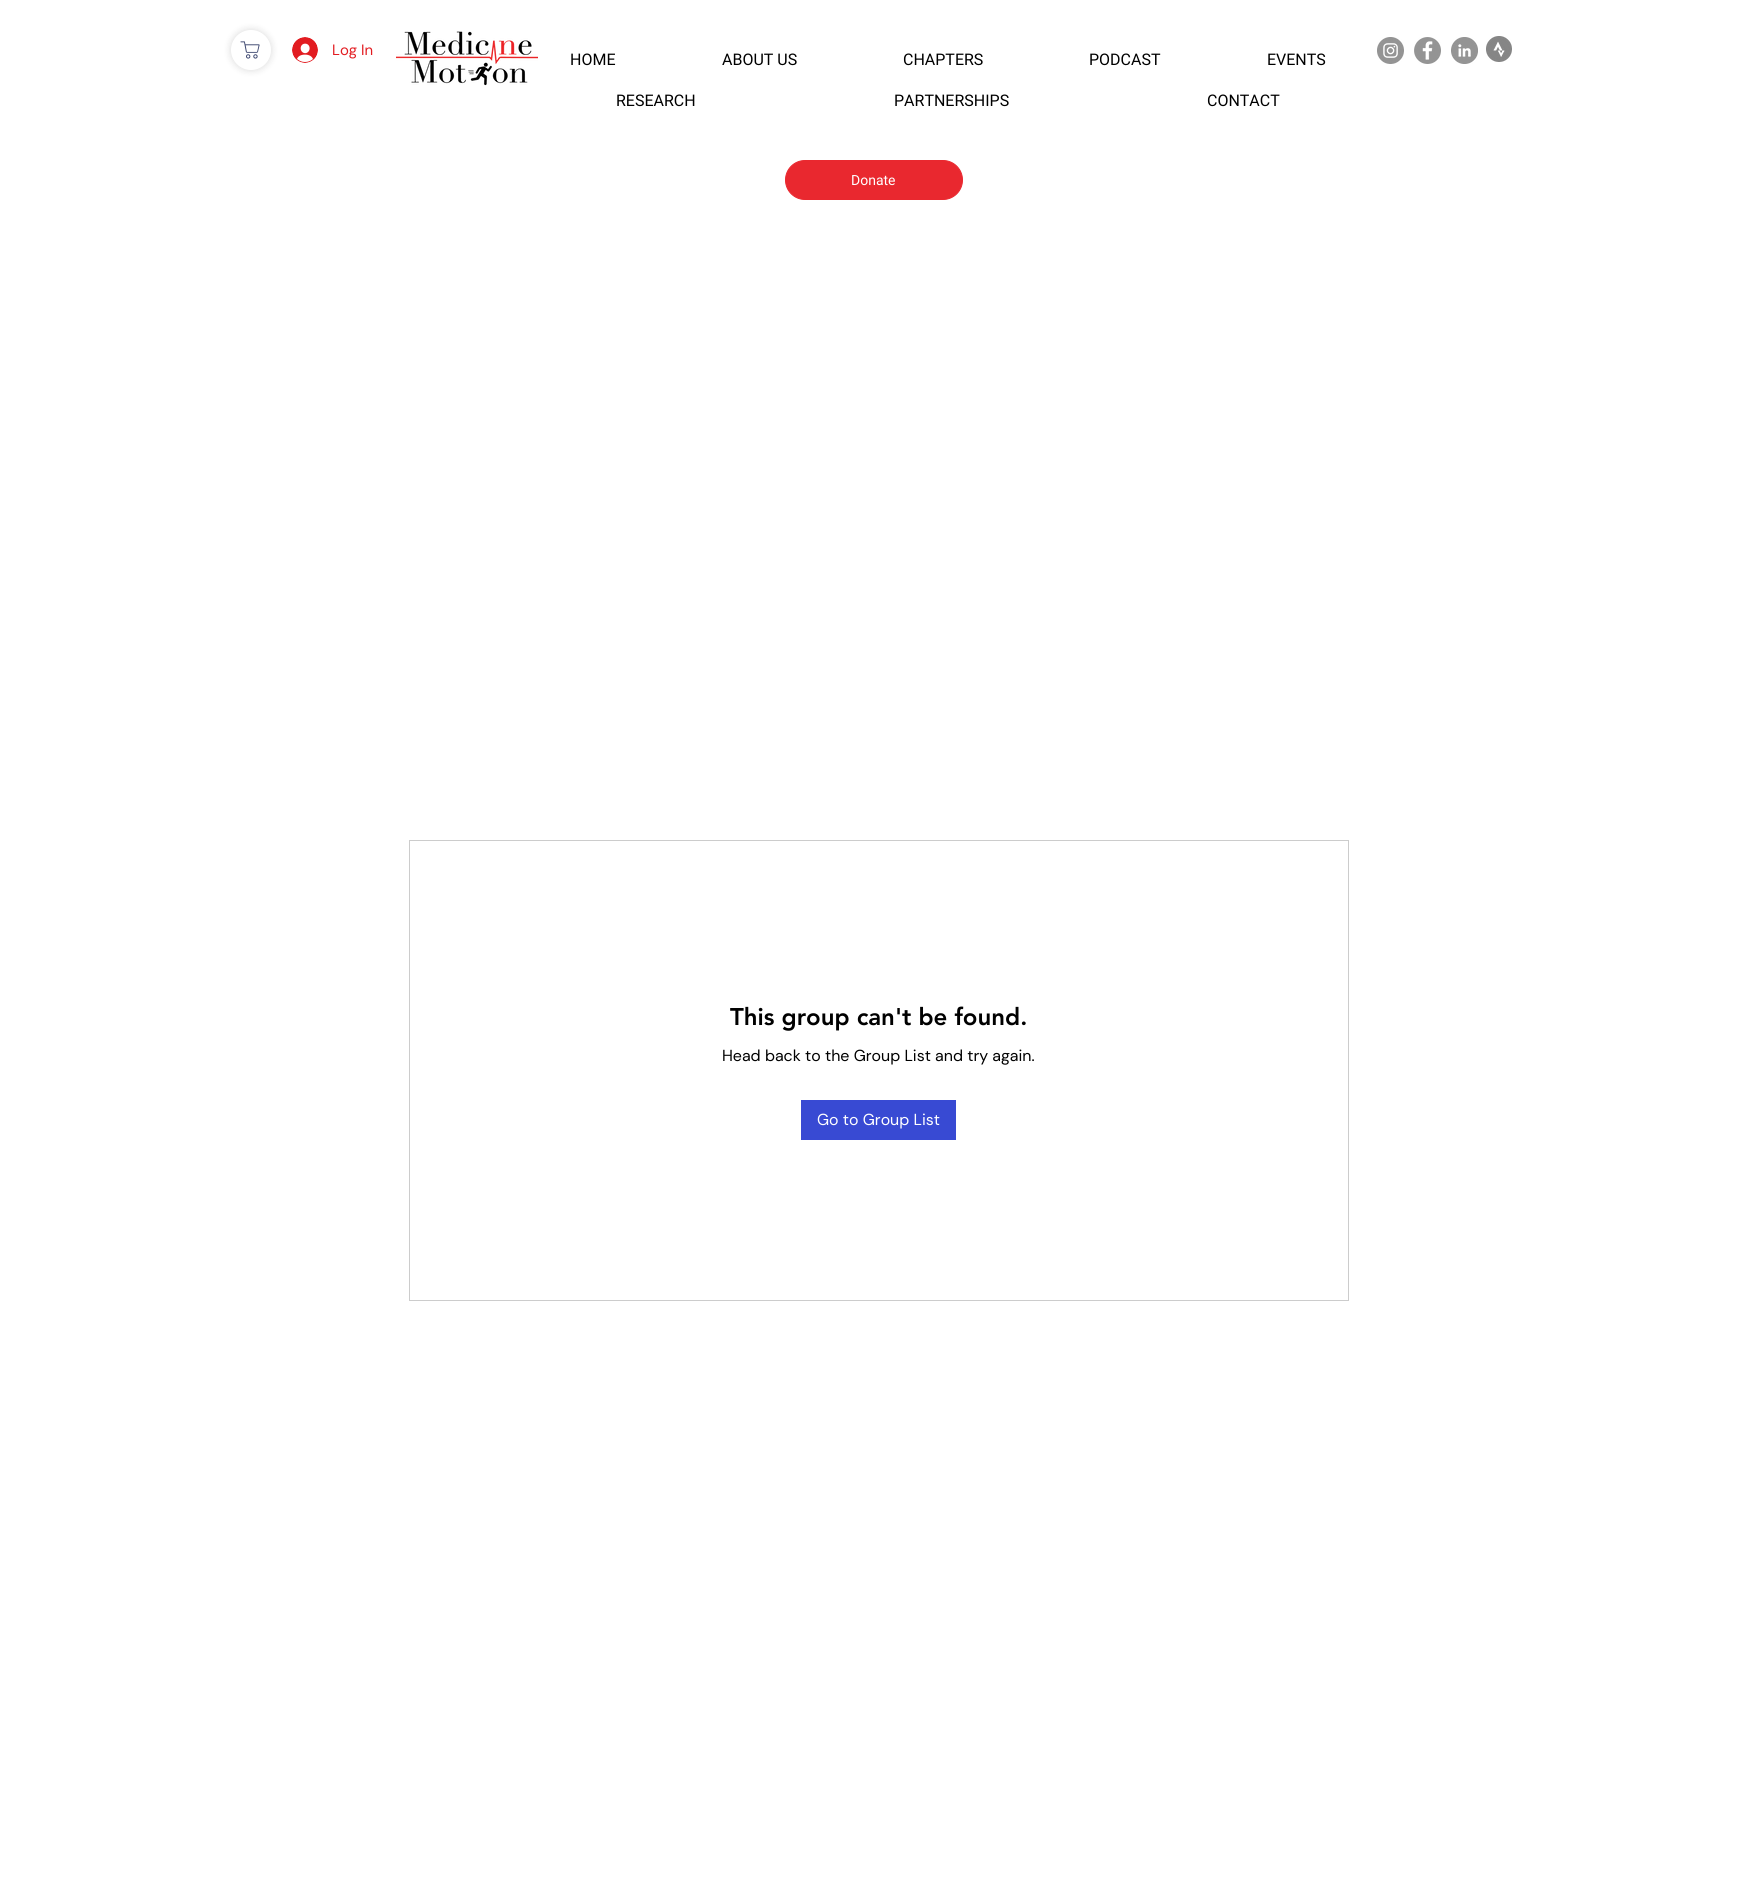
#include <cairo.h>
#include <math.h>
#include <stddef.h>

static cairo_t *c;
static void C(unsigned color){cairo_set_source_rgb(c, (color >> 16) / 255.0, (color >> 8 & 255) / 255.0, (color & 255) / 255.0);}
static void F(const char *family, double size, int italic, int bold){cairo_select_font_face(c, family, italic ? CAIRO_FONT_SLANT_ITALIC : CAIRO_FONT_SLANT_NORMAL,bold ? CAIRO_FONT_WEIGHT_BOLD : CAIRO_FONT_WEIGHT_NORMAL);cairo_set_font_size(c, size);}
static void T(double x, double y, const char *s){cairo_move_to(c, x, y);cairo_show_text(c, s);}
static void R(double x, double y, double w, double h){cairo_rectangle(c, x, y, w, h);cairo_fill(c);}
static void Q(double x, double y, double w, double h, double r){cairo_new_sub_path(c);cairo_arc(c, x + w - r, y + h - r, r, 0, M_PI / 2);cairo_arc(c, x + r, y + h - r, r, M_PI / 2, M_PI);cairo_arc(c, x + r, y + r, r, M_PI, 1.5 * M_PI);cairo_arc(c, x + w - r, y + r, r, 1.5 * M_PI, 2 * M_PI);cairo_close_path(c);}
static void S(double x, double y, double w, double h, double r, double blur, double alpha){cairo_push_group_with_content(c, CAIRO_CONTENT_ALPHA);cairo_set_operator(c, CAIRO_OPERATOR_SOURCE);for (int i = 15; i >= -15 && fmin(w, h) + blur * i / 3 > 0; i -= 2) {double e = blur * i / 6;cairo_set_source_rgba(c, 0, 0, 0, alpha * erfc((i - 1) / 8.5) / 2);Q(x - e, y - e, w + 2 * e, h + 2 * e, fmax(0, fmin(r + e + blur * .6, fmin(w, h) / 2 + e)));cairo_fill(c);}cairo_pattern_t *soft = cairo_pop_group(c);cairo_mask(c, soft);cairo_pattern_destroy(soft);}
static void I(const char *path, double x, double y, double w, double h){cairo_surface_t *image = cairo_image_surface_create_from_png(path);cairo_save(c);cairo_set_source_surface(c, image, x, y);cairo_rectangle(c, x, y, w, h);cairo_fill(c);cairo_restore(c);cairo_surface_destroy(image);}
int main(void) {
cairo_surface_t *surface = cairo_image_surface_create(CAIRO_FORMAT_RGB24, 1757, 1898);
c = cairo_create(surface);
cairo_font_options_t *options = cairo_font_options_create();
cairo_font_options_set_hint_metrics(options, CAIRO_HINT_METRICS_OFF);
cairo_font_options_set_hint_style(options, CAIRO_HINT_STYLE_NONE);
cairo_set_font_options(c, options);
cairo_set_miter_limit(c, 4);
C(0xffffff);
cairo_paint(c);
C(0x000000);
S(231,30,40,40,20,4,.15);
C(0xffffff);
cairo_arc(c,251,50,20,0,2 * M_PI);
cairo_fill(c);
I("1.png",240,41,20,18);
I("2.png",292,37,26,26);
F("DM Sans",15,0,0);
C(0xe21c21);
T(332,55,"Log In");
I("3.png",396,31,142,55);
I("4.png",1377,37,27,27);
I("5.png",1414,37,27,27);
I("6.png",1451,37,27,27);
I("7.png",1486,36,26,26);
F("Roboto",16,0,0);
C(0x000000);
T(570,65,"HOME");
T(722,65,"ABOUT US");
T(903,65,"CHAPTERS");
T(1089,65,"PODCAST");
T(1267,65,"EVENTS");
T(616,106,"RESEARCH");
T(894,106,"PARTNERSHIPS");
T(1207,106,"CONTACT");
C(0xe9282f);
Q(785.5,160.5,177,39,19.5);
cairo_fill_preserve(c);
cairo_set_line_width(c,1);
cairo_stroke(c);
F("Roboto",14,0,0);
C(0xffffff);
T(851,185,"Donate");
cairo_rectangle(c,409.5,840.5,939,460);
C(0xcccccc);
cairo_stroke(c);
F("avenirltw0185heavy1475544 Black",24,0,0);
C(0x000000);
T(730,1025,"This group can't be found.");
F("DM Sans",16,0,0);
T(722,1061,"Head back to the Group List and try again.");
C(0x384ad3);
R(801,1100,155,40);
C(0xffffff);
T(817,1125,"Go to Group List");
cairo_surface_write_to_png(surface, "o.png");
cairo_font_options_destroy(options);
cairo_destroy(c);
cairo_surface_destroy(surface);
return 0;
}
